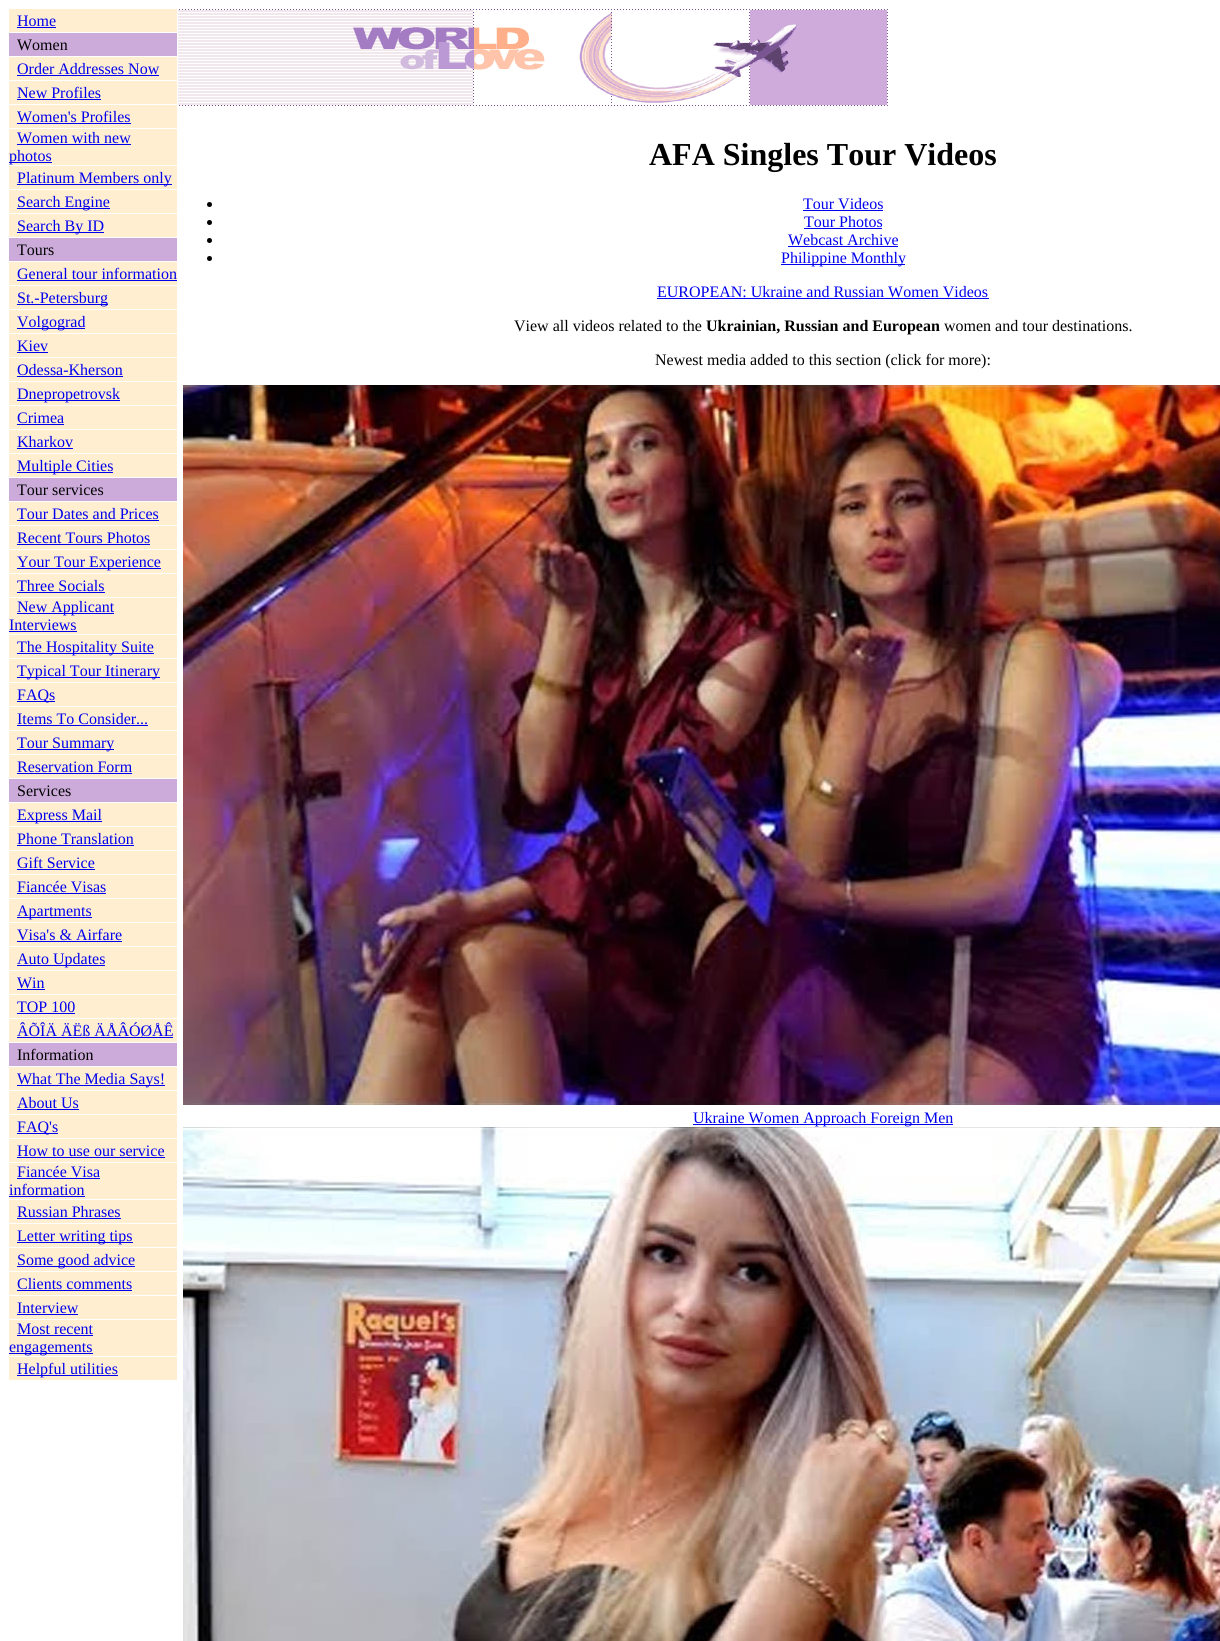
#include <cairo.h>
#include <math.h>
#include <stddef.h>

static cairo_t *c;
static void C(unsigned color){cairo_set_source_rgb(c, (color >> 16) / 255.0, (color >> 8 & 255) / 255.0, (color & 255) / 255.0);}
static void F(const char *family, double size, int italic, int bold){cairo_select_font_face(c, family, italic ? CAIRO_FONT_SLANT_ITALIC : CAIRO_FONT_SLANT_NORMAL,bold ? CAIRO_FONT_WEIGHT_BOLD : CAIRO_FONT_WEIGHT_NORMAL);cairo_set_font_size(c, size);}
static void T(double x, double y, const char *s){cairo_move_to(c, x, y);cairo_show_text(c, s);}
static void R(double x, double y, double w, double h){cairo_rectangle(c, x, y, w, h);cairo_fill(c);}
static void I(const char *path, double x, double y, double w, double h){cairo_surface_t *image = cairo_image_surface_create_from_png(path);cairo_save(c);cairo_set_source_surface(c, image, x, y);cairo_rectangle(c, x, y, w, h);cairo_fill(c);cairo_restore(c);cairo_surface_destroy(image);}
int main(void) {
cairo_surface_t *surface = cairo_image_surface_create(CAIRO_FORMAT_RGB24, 1220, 1641);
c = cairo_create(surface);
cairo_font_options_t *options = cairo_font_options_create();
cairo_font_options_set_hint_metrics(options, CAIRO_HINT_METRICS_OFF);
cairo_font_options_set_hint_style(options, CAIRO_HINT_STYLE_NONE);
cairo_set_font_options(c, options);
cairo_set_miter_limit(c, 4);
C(0xffffff);
cairo_paint(c);
C(0xffeed0);
R(9,9,168,23);
F("Liberation Serif",16,0,0);
C(0x0000ee);
T(17,26,"Home");
R(17,27,39,1);
C(0xccabdb);
R(9,33,168,23);
C(0x000000);
T(17,50,"Women");
C(0xffeed0);
R(9,57,168,23);
C(0x0000ee);
T(17,74,"Order Addresses Now");
R(17,75,142,1);
C(0xffeed0);
R(9,81,168,23);
C(0x0000ee);
T(17,98,"New Profiles");
R(17,99,84,1);
C(0xffeed0);
R(9,105,168,23);
C(0x0000ee);
T(17,122,"Women's Profiles");
R(17,123,114,1);
C(0xffeed0);
R(9,129,168,36);
C(0x0000ee);
T(17,143,"Women with new");
R(17,144,114,1);
R(9,162,43,1);
T(9,161,"photos");
C(0xffeed0);
R(9,166,168,23);
C(0x0000ee);
R(17,184,155,1);
T(17,183,"Platinum Members only");
C(0xffeed0);
R(9,190,168,23);
C(0x0000ee);
R(17,208,93,1);
T(17,207,"Search Engine");
C(0xffeed0);
R(9,214,168,23);
C(0x0000ee);
R(17,232,87,1);
T(17,231,"Search By ID");
C(0xccabdb);
R(9,238,168,23);
C(0x000000);
T(17,255,"Tours");
C(0xffeed0);
R(9,262,168,23);
C(0x0000ee);
T(17,279,"General tour information");
R(17,280,160,1);
C(0xffeed0);
R(9,286,168,23);
C(0x0000ee);
R(17,304,91,1);
T(17,303,"St.-Petersburg");
C(0xffeed0);
R(9,310,168,23);
C(0x0000ee);
R(17,328,68,1);
T(17,327,"Volgograd");
C(0xffeed0);
R(9,334,168,23);
C(0x0000ee);
T(17,351,"Kiev");
R(17,352,31,1);
C(0xffeed0);
R(9,358,168,23);
C(0x0000ee);
T(17,375,"Odessa-Kherson");
R(17,376,106,1);
C(0xffeed0);
R(9,382,168,23);
C(0x0000ee);
R(17,400,103,1);
T(17,399,"Dnepropetrovsk");
C(0xffeed0);
R(9,406,168,23);
C(0x0000ee);
T(17,423,"Crimea");
R(17,424,47,1);
C(0xffeed0);
R(9,430,168,23);
C(0x0000ee);
T(17,447,"Kharkov");
R(17,448,56,1);
C(0xffeed0);
R(9,454,168,23);
C(0x0000ee);
R(17,472,96,1);
T(17,471,"Multiple Cities");
C(0xccabdb);
R(9,478,168,23);
C(0x000000);
T(17,495,"Tour services");
C(0xffeed0);
R(9,502,168,23);
C(0x0000ee);
T(17,519,"Tour Dates and Prices");
R(17,520,142,1);
C(0xffeed0);
R(9,526,168,23);
C(0x0000ee);
T(17,543,"Recent Tours Photos");
R(17,544,133,1);
C(0xffeed0);
R(9,550,168,23);
C(0x0000ee);
R(17,568,144,1);
T(17,567,"Your Tour Experience");
C(0xffeed0);
R(9,574,168,23);
C(0x0000ee);
T(17,591,"Three Socials");
R(17,592,88,1);
C(0xffeed0);
R(9,598,168,36);
C(0x0000ee);
R(17,613,97,1);
T(17,612,"New Applicant");
T(9,630,"Interviews");
R(9,631,68,1);
C(0xffeed0);
R(9,635,168,23);
C(0x0000ee);
R(17,653,137,1);
T(17,652,"The Hospitality Suite");
C(0xffeed0);
R(9,659,168,23);
C(0x0000ee);
R(17,677,143,1);
T(17,676,"Typical Tour Itinerary");
C(0xffeed0);
R(9,683,168,23);
C(0x0000ee);
R(17,701,38,1);
T(17,700,"FAQs");
C(0xffeed0);
R(9,707,168,23);
C(0x0000ee);
T(17,724,"Items To Consider...");
R(17,725,131,1);
C(0xffeed0);
R(9,731,168,23);
C(0x0000ee);
R(17,749,97,1);
T(17,748,"Tour Summary");
C(0xffeed0);
R(9,755,168,23);
C(0x0000ee);
T(17,772,"Reservation Form");
R(17,773,115,1);
C(0xccabdb);
R(9,779,168,23);
C(0x000000);
T(17,796,"Services");
C(0xffeed0);
R(9,803,168,23);
C(0x0000ee);
R(17,821,85,1);
T(17,820,"Express Mail");
C(0xffeed0);
R(9,827,168,23);
C(0x0000ee);
T(17,844,"Phone Translation");
R(17,845,117,1);
C(0xffeed0);
R(9,851,168,23);
C(0x0000ee);
T(17,868,"Gift Service");
R(17,869,78,1);
C(0xffeed0);
R(9,875,168,23);
C(0x0000ee);
T(17,892,"Fiancée Visas");
R(17,893,89,1);
C(0xffeed0);
R(9,899,168,23);
C(0x0000ee);
R(17,917,75,1);
T(17,916,"Apartments");
C(0xffeed0);
R(9,923,168,23);
C(0x0000ee);
T(17,940,"Visa's & Airfare");
R(17,941,105,1);
C(0xffeed0);
R(9,947,168,23);
C(0x0000ee);
R(17,965,88,1);
T(17,964,"Auto Updates");
C(0xffeed0);
R(9,971,168,23);
C(0x0000ee);
T(17,988,"Win");
R(17,989,28,1);
C(0xffeed0);
R(9,995,168,23);
C(0x0000ee);
T(17,1012,"TOP 100");
R(17,1013,58,1);
C(0xffeed0);
R(9,1019,168,23);
C(0x0000ee);
T(17,1036,"ÂÕÎÄ ÄËß ÄÅÂÓØÅÊ");
R(17,1037,156,1);
C(0xccabdb);
R(9,1043,168,23);
C(0x000000);
T(17,1060,"Information");
C(0xffeed0);
R(9,1067,168,23);
C(0x0000ee);
R(17,1085,148,1);
T(17,1084,"What The Media Says!");
C(0xffeed0);
R(9,1091,168,23);
C(0x0000ee);
T(17,1108,"About Us");
R(17,1109,62,1);
C(0xffeed0);
R(9,1115,168,23);
C(0x0000ee);
R(17,1133,41,1);
T(17,1132,"FAQ's");
C(0xffeed0);
R(9,1139,168,23);
C(0x0000ee);
T(17,1156,"How to use our service");
R(17,1157,148,1);
C(0xffeed0);
R(9,1163,168,36);
C(0x0000ee);
T(17,1177,"Fiancée Visa");
R(17,1178,83,1);
T(9,1195,"information");
R(9,1196,76,1);
C(0xffeed0);
R(9,1200,168,23);
C(0x0000ee);
T(17,1217,"Russian Phrases");
R(17,1218,104,1);
C(0xffeed0);
R(9,1224,168,23);
C(0x0000ee);
R(17,1242,116,1);
T(17,1241,"Letter writing tips");
C(0xffeed0);
R(9,1248,168,23);
C(0x0000ee);
R(17,1266,118,1);
T(17,1265,"Some good advice");
C(0xffeed0);
R(9,1272,168,23);
C(0x0000ee);
T(17,1289,"Clients comments");
R(17,1290,115,1);
C(0xffeed0);
R(9,1296,168,23);
C(0x0000ee);
T(17,1313,"Interview");
R(17,1314,61,1);
C(0xffeed0);
R(9,1320,168,36);
C(0x0000ee);
T(17,1334,"Most recent");
R(17,1335,76,1);
R(9,1353,84,1);
T(9,1352,"engagements");
C(0xffeed0);
R(9,1357,168,23);
C(0x0000ee);
R(17,1375,101,1);
T(17,1374,"Helpful utilities");
I("1.png",178,9,710,97);
F("Liberation Serif",32,0,1);
C(0x000000);
T(649,165,"AFA Singles Tour Videos");
cairo_new_path(c);
cairo_arc(c,209.5,204.5,2.5,0,2 * M_PI);
cairo_fill(c);
F("Liberation Serif",16,0,0);
C(0x0000ee);
T(803,209,"Tour Videos");
R(803,210,80,1);
C(0x000000);
cairo_new_path(c);
cairo_arc(c,209.5,222.5,2.5,0,2 * M_PI);
cairo_fill(c);
C(0x0000ee);
T(804,227,"Tour Photos");
R(804,228,78,1);
C(0x000000);
cairo_new_path(c);
cairo_arc(c,209.5,240.5,2.5,0,2 * M_PI);
cairo_fill(c);
C(0x0000ee);
T(788,245,"Webcast Archive");
R(788,246,110,1);
C(0x000000);
cairo_new_path(c);
cairo_arc(c,209.5,258.5,2.5,0,2 * M_PI);
cairo_fill(c);
C(0x0000ee);
R(781,264,124,1);
T(781,263,"Philippine Monthly");
T(657,297,"EUROPEAN: Ukraine and Russian Women Videos");
R(657,298,332,1);
C(0x000000);
T(514,331,"View all videos related to the");
F("Liberation Serif",16,0,1);
T(706,331,"Ukrainian, Russian and European");
F("Liberation Serif",16,0,0);
T(944,331,"women and tour destinations.");
T(655,365,"Newest media added to this section (click for more):");
I("2.png",183,385,1037,720);
C(0x0000ee);
R(693,1124,260,1);
T(693,1123,"Ukraine Women Approach Foreign Men");
I("3.png",183,1127,1037,514);
cairo_surface_write_to_png(surface, "o.png");
cairo_font_options_destroy(options);
cairo_destroy(c);
cairo_surface_destroy(surface);
return 0;
}
